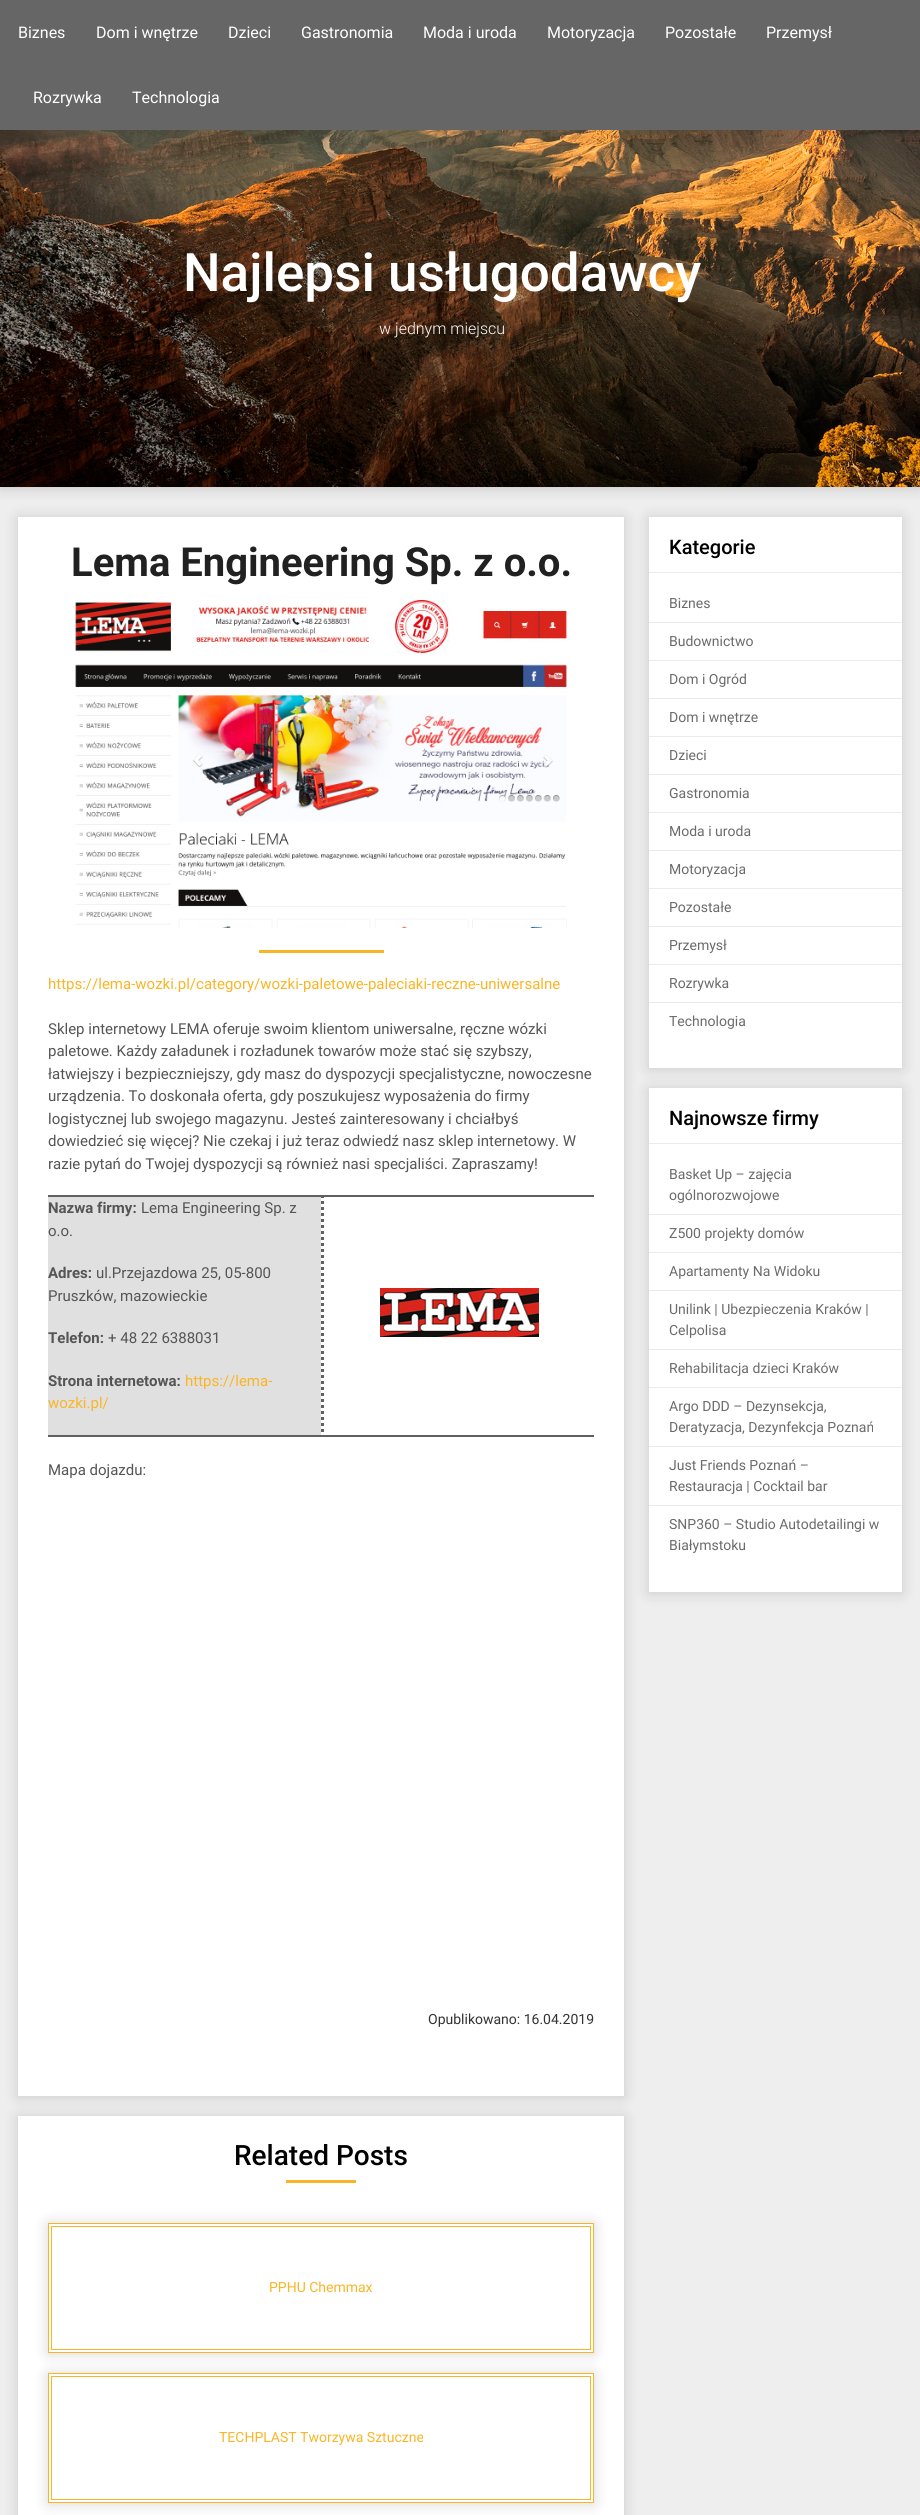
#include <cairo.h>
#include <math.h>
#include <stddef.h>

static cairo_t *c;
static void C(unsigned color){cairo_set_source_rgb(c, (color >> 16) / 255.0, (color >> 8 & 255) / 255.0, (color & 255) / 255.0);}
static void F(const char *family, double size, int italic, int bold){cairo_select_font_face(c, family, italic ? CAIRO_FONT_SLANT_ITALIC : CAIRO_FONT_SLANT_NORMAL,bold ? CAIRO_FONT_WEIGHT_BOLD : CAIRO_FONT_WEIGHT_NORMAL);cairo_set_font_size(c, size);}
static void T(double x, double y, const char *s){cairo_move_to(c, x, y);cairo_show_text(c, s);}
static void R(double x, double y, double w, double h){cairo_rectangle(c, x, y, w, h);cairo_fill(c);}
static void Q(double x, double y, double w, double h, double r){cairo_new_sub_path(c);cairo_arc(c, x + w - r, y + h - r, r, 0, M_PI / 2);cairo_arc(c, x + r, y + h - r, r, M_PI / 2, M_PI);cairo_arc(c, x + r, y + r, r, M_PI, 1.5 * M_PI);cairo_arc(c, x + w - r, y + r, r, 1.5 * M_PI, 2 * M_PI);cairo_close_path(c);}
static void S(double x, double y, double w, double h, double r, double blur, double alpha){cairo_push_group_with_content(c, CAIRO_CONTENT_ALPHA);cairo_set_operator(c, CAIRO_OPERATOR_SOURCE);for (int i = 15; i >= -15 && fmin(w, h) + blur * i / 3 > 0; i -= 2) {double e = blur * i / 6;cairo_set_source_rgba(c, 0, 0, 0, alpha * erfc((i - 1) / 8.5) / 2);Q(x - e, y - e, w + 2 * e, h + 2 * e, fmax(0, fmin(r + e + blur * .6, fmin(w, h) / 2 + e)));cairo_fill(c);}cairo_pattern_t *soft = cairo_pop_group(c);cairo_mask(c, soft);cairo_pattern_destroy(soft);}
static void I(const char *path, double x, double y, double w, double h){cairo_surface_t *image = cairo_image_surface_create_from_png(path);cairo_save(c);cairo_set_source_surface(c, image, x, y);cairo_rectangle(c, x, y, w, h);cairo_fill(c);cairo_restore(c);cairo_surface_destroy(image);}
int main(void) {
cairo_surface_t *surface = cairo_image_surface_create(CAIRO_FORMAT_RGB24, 920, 2515);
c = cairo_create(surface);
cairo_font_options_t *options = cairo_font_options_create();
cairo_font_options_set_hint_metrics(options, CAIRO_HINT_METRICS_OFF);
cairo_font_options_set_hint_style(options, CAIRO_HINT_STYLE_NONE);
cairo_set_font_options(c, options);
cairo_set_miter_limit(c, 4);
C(0xeeeeee);
cairo_paint(c);
C(0x000000);
S(0,0,920,487,0,7.5,.2);
I("1.png",0,130,920,357);
C(0x666666);
R(0,0,920,130);
F("Roboto",16,0,0);
C(0xffffff);
T(18,38,"Biznes");
T(96,38,"Dom i wnętrze");
T(228,38,"Dzieci");
T(301,38,"Gastronomia");
T(423,38,"Moda i uroda");
T(547,38,"Motoryzacja");
T(665,38,"Pozostałe");
T(766,38,"Przemysł");
T(33,103,"Rozrywka");
T(132,103,"Technologia");
F("Roboto Medium",53,0,0);
T(183,291,"Najlepsi usługodawcy");
F("Roboto Light",16,0,0);
T(379,334,"w jednym miejscu");
C(0x000000);
S(18,518,606,1579,0,7.5,.15);
C(0xffffff);
R(18,517,606,1579);
F("Roboto",40,0,1);
C(0x212121);
T(71,576,"Lema Engineering Sp. z o.o.");
I("2.png",75,594,492,334);
C(0xfab526);
R(259,950,125,3);
F("Roboto",15,0,0);
T(48,989,"https://lema-wozki.pl/category/wozki-paletowe-paleciaki-reczne-uniwersalne");
C(0x555555);
T(48,1034,"Sklep internetowy LEMA oferuje swoim klientom uniwersalne, ręczne wózki");
T(48,1056,"paletowe. Każdy załadunek i rozładunek towarów może stać się szybszy,");
T(48,1079,"łatwiejszy i bezpieczniejszy, gdy masz do dyspozycji specjalistyczne, nowoczesne");
T(48,1101,"urządzenia. To doskonała oferta, gdy poszukujesz wyposażenia do firmy");
T(48,1124,"logistycznej lub swojego magazynu. Jesteś zainteresowany i chciałbyś");
T(48,1146,"dowiedzieć się więcej? Nie czekaj i już teraz odwiedź nasz sklep internetowy. W");
T(48,1169,"razie pytań do Twojej dyspozycji są również nasi specjaliści. Zapraszamy!");
C(0xe0e0e0);
R(48,1197,273,238);
C(0x606060);
R(48,1195,546,2);
R(48,1435,546,2);
F("Roboto",15,0,1);
C(0x555555);
T(48,1213,"Nazwa firmy:");
F("Roboto",15,0,0);
T(141,1213,"Lema Engineering Sp. z");
T(48,1236,"o.o.");
F("Roboto",15,0,1);
T(48,1278,"Adres:");
F("Roboto",15,0,0);
T(96,1278,"ul.Przejazdowa 25, 05-800");
T(48,1301,"Pruszków, mazowieckie");
F("Roboto",15,0,1);
T(48,1343,"Telefon:");
F("Roboto",15,0,0);
T(108,1343,"+ 48 22 6388031");
F("Roboto",15,0,1);
T(48,1386,"Strona internetowa:");
F("Roboto",15,0,0);
C(0xfab526);
T(185,1386,"https://lema-");
T(48,1408,"wozki.pl/");
cairo_new_path(c);
cairo_move_to(c,322.5,1195);
cairo_line_to(c,322.5,1437);
C(0x606060);
cairo_set_line_width(c,3);
cairo_set_dash(c,(double[]){3,3},2,0);
cairo_stroke(c);
I("3.png",380,1288,159,49);
C(0x555555);
T(48,1475,"Mapa dojazdu:");
F("Roboto",14,0,0);
C(0x333333);
T(428,2024,"Opublikowano: 16.04.2019");
C(0x000000);
S(18,2117,606,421,0,7.5,.15);
C(0xffffff);
R(18,2116,606,399);
F("Roboto Medium",28,0,0);
C(0x000000);
T(234,2165,"Related Posts");
C(0xfab526);
R(286,2180,70,3);
cairo_save(c);
cairo_set_fill_rule(c,CAIRO_FILL_RULE_EVEN_ODD);
cairo_new_path(c);
cairo_move_to(c,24,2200);
cairo_line_to(c,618,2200);
cairo_line_to(c,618,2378);
cairo_line_to(c,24,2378);
cairo_close_path(c);
cairo_move_to(c,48,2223);
cairo_line_to(c,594,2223);
cairo_line_to(c,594,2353);
cairo_line_to(c,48,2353);
cairo_close_path(c);
cairo_clip(c);
C(0x000000);
S(48,2224,546,130,0,7.5,.15);
cairo_restore(c);
cairo_rectangle(c,48.5,2223.5,545,129);
cairo_set_line_width(c,1);
cairo_set_dash(c,NULL,0,0);
cairo_stroke(c);
cairo_rectangle(c,51.5,2226.5,539,123);
cairo_stroke(c);
F("Roboto",14,0,0);
T(269,2292,"PPHU Chemmax");
cairo_save(c);
cairo_set_fill_rule(c,CAIRO_FILL_RULE_EVEN_ODD);
cairo_new_path(c);
cairo_move_to(c,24,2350);
cairo_line_to(c,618,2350);
cairo_line_to(c,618,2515);
cairo_line_to(c,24,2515);
cairo_close_path(c);
cairo_move_to(c,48,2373);
cairo_line_to(c,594,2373);
cairo_line_to(c,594,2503);
cairo_line_to(c,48,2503);
cairo_close_path(c);
cairo_clip(c);
C(0x000000);
S(48,2374,546,130,0,7.5,.15);
cairo_restore(c);
cairo_rectangle(c,48.5,2373.5,545,129);
cairo_stroke(c);
cairo_rectangle(c,51.5,2376.5,539,123);
cairo_stroke(c);
T(219,2442,"TECHPLAST Tworzywa Sztuczne");
C(0x000000);
S(649,518,253,551,0,7.5,.15);
C(0xffffff);
R(649,517,253,551);
C(0xebebeb);
R(649,572,253,1);
F("Roboto Medium",20,0,0);
C(0x000000);
T(669,554,"Kategorie");
C(0xebebeb);
R(649,622,253,1);
F("Roboto",14,0,0);
C(0x6b6b6b);
T(669,608,"Biznes");
C(0xebebeb);
R(649,660,253,1);
C(0x6b6b6b);
T(669,646,"Budownictwo");
C(0xebebeb);
R(649,698,253,1);
C(0x6b6b6b);
T(669,684,"Dom i Ogród");
C(0xebebeb);
R(649,736,253,1);
C(0x6b6b6b);
T(669,722,"Dom i wnętrze");
C(0xebebeb);
R(649,774,253,1);
C(0x6b6b6b);
T(669,760,"Dzieci");
C(0xebebeb);
R(649,812,253,1);
C(0x6b6b6b);
T(669,798,"Gastronomia");
C(0xebebeb);
R(649,850,253,1);
C(0x6b6b6b);
T(669,836,"Moda i uroda");
C(0xebebeb);
R(649,888,253,1);
C(0x6b6b6b);
T(669,874,"Motoryzacja");
C(0xebebeb);
R(649,926,253,1);
C(0x6b6b6b);
T(669,912,"Pozostałe");
C(0xebebeb);
R(649,964,253,1);
C(0x6b6b6b);
T(669,950,"Przemysł");
C(0xebebeb);
R(649,1002,253,1);
C(0x6b6b6b);
T(669,988,"Rozrywka");
T(669,1026,"Technologia");
C(0x000000);
S(649,1089,253,504,0,7.5,.15);
C(0xffffff);
R(649,1088,253,504);
C(0xebebeb);
R(649,1143,253,1);
F("Roboto Medium",20,0,0);
C(0x000000);
T(669,1125,"Najnowsze firmy");
C(0xebebeb);
R(649,1214,253,1);
F("Roboto",14,0,0);
C(0x6b6b6b);
T(669,1179,"Basket Up – zajęcia");
T(669,1200,"ogólnorozwojowe");
C(0xebebeb);
R(649,1252,253,1);
C(0x6b6b6b);
T(669,1238,"Z500 projekty domów");
C(0xebebeb);
R(649,1290,253,1);
C(0x6b6b6b);
T(669,1276,"Apartamenty Na Widoku");
C(0xebebeb);
R(649,1349,253,1);
C(0x6b6b6b);
T(669,1314,"Unilink | Ubezpieczenia Kraków |");
T(669,1335,"Celpolisa");
C(0xebebeb);
R(649,1387,253,1);
C(0x6b6b6b);
T(669,1373,"Rehabilitacja dzieci Kraków");
C(0xebebeb);
R(649,1446,253,1);
C(0x6b6b6b);
T(669,1411,"Argo DDD – Dezynsekcja,");
T(669,1432,"Deratyzacja, Dezynfekcja Poznań");
C(0xebebeb);
R(649,1505,253,1);
C(0x6b6b6b);
T(669,1470,"Just Friends Poznań –");
T(669,1491,"Restauracja | Cocktail bar");
T(669,1529,"SNP360 – Studio Autodetailingi w");
T(669,1550,"Białymstoku");
cairo_surface_write_to_png(surface, "o.png");
cairo_font_options_destroy(options);
cairo_destroy(c);
cairo_surface_destroy(surface);
return 0;
}
